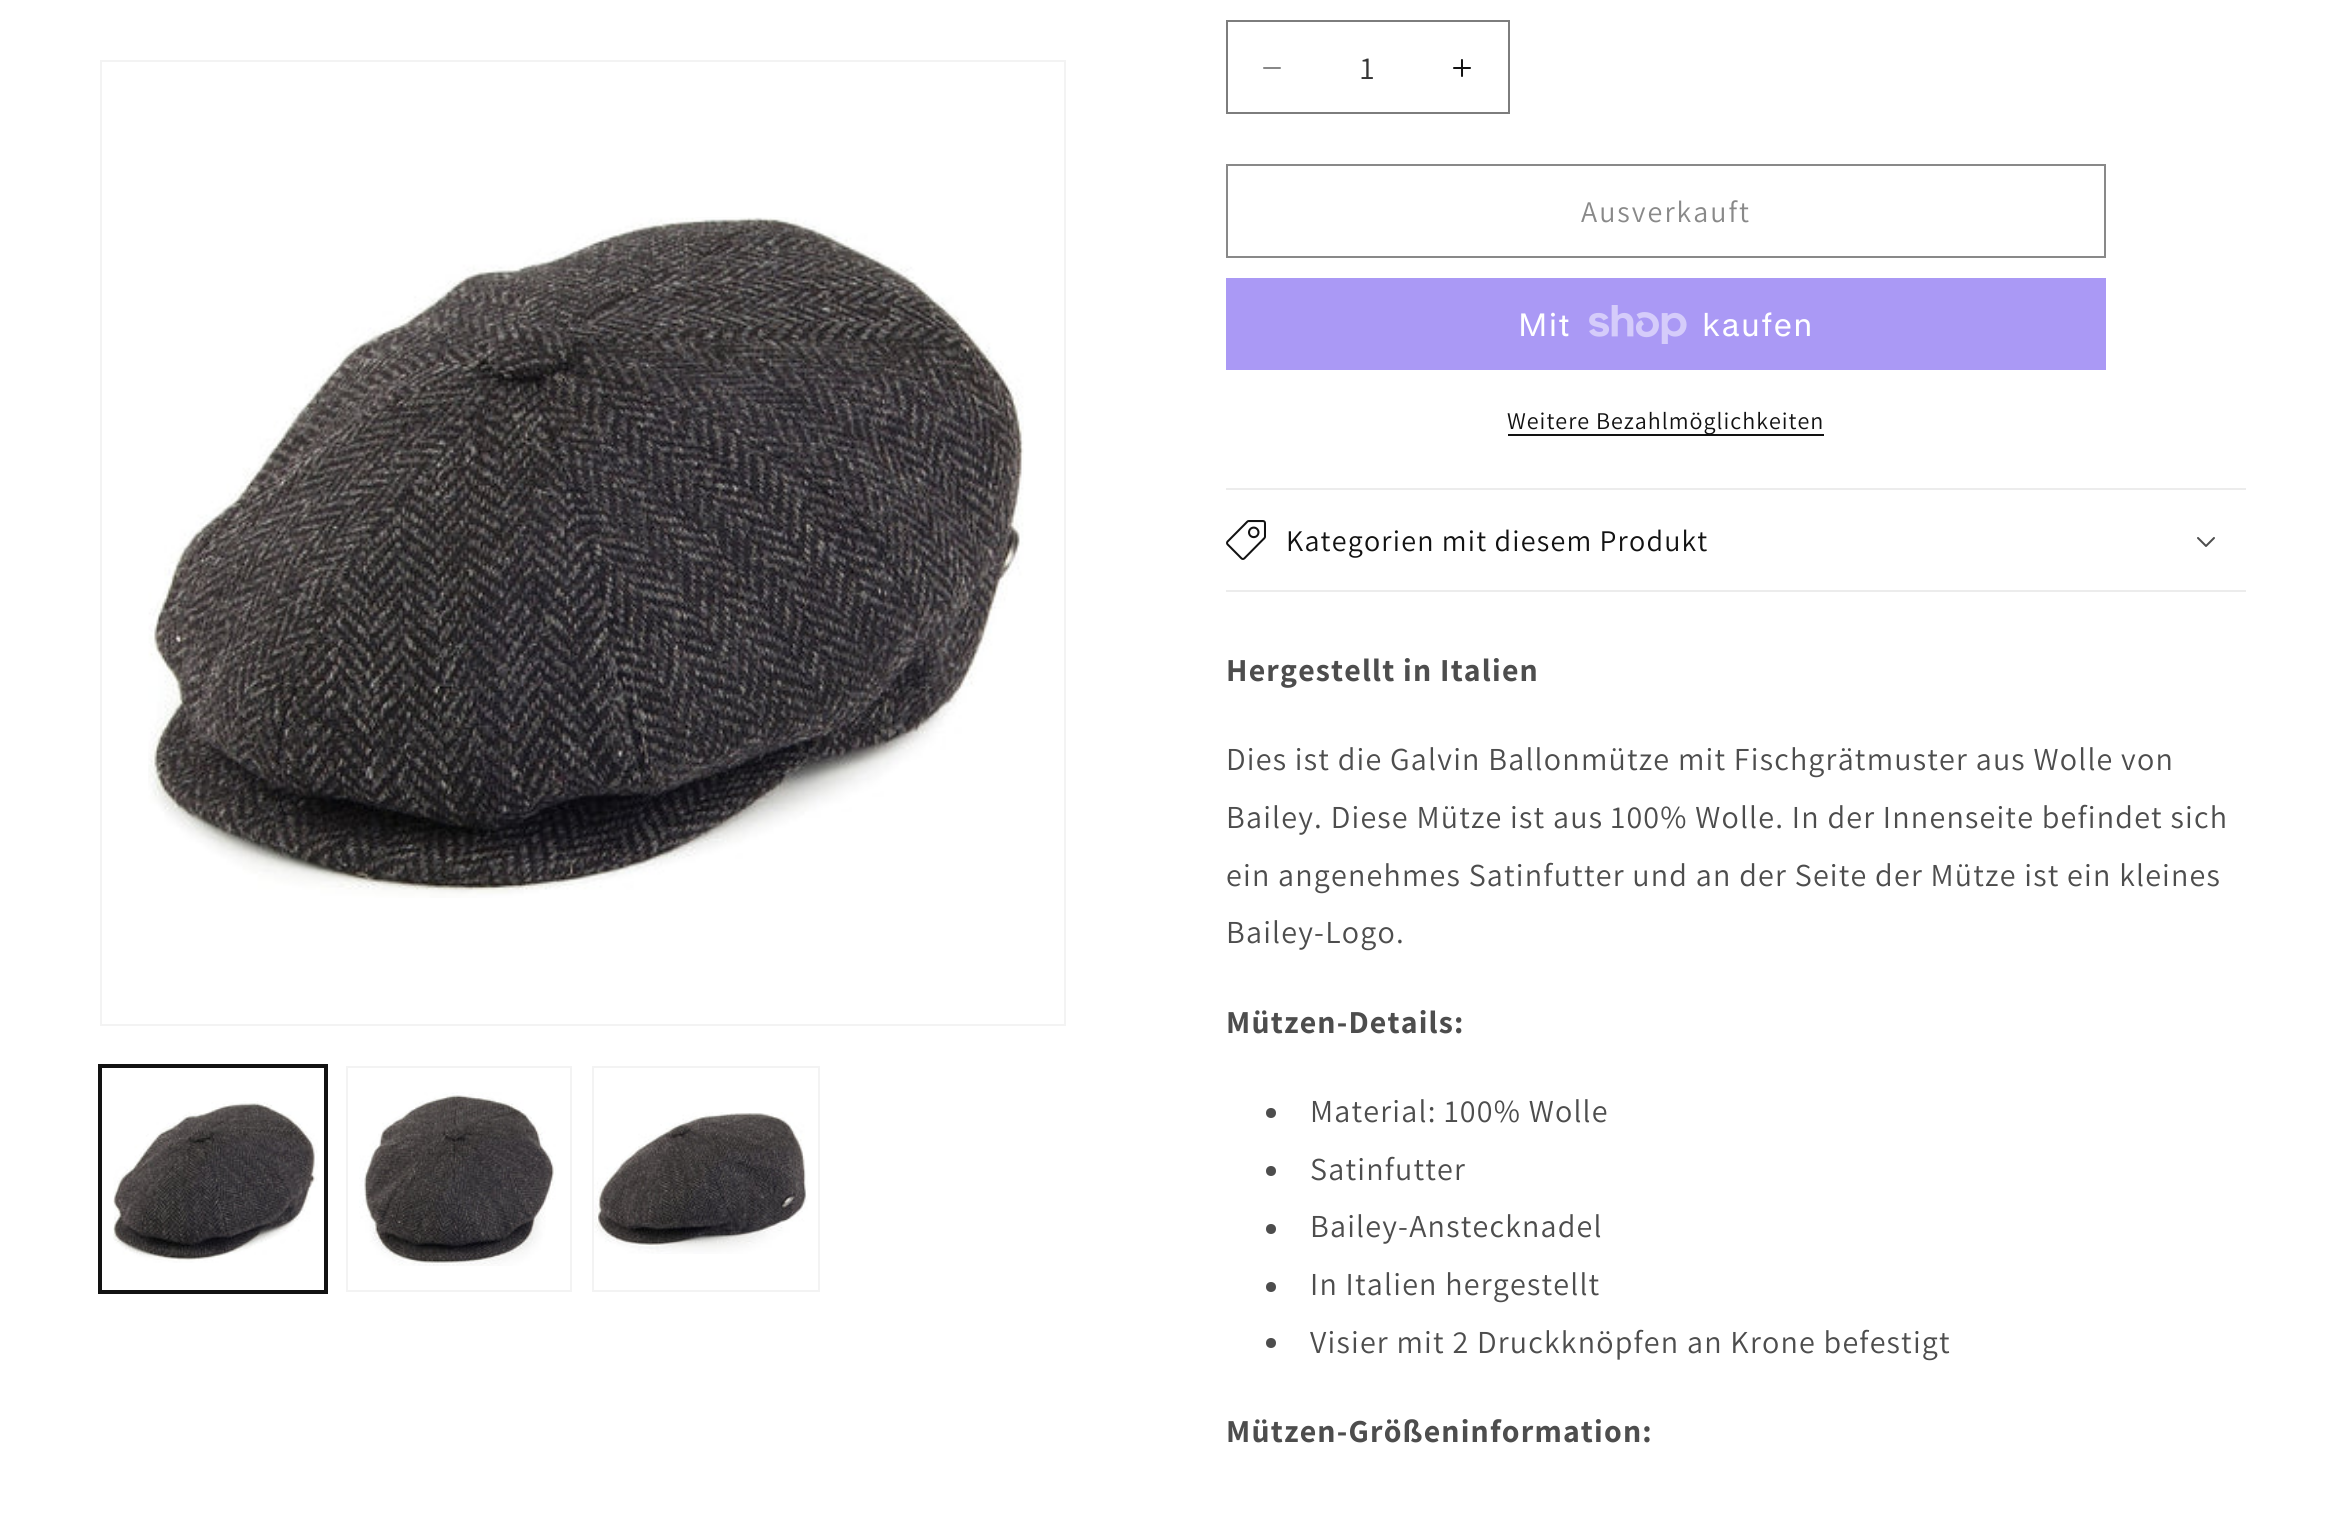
#include <cairo.h>
#include <math.h>
#include <stddef.h>

static cairo_t *c;
static void C(unsigned color){cairo_set_source_rgb(c, (color >> 16) / 255.0, (color >> 8 & 255) / 255.0, (color & 255) / 255.0);}
static void F(const char *family, double size, int italic, int bold){cairo_select_font_face(c, family, italic ? CAIRO_FONT_SLANT_ITALIC : CAIRO_FONT_SLANT_NORMAL,bold ? CAIRO_FONT_WEIGHT_BOLD : CAIRO_FONT_WEIGHT_NORMAL);cairo_set_font_size(c, size);}
static void T(double x, double y, const char *s){cairo_move_to(c, x, y);cairo_show_text(c, s);}
static void L(double x, double y, const char *s, double letter, double word){cairo_move_to(c, x, y);while (*s) {char ch[5] = {0};int n = 0;do ch[n++] = *s++; while ((*s & 0xC0) == 0x80);cairo_show_text(c, ch);cairo_rel_move_to(c, letter + word * (*ch == ' '), 0);}}
static void R(double x, double y, double w, double h){cairo_rectangle(c, x, y, w, h);cairo_fill(c);}
static void I(const char *path, double x, double y, double w, double h){cairo_surface_t *image = cairo_image_surface_create_from_png(path);cairo_save(c);cairo_set_source_surface(c, image, x, y);cairo_rectangle(c, x, y, w, h);cairo_fill(c);cairo_restore(c);cairo_surface_destroy(image);}
int main(void) {
cairo_surface_t *surface = cairo_image_surface_create(CAIRO_FORMAT_RGB24, 2345, 1524);
c = cairo_create(surface);
cairo_font_options_t *options = cairo_font_options_create();
cairo_font_options_set_hint_metrics(options, CAIRO_HINT_METRICS_OFF);
cairo_font_options_set_hint_style(options, CAIRO_HINT_STYLE_NONE);
cairo_set_font_options(c, options);
cairo_set_miter_limit(c, 4);
C(0xffffff);
cairo_paint(c);
cairo_rectangle(c,101,61,964,964);
C(0xf3f3f3);
cairo_stroke(c);
I("1.png",148,217,876,681);
cairo_rectangle(c,99,1065,228,228);
C(0x121212);
cairo_stroke(c);
cairo_rectangle(c,101,1067,224,224);
cairo_stroke(c);
I("2.png",113,1101,205,162);
cairo_rectangle(c,347,1067,224,224);
C(0xf3f3f3);
cairo_stroke(c);
I("3.png",359,1092,197,174);
cairo_rectangle(c,593,1067,226,224);
cairo_stroke(c);
I("4.png",594,1112,214,142);
I("5.png",1263,67,18,2);
I("6.png",1453,59,18,18);
cairo_rectangle(c,1227,21,282,92);
C(0x7d7d7d);
cairo_stroke(c);
F("Assistant",32,0,0);
C(0x363636);
T(1360,79,"1");
cairo_rectangle(c,1227,165,878,92);
C(0x898989);
cairo_stroke(c);
F("Assistant",30,0,0);
L(1581,222,"Ausverkauft",2,0);
C(0xaa99f5);
R(1226,278,880,92);
F("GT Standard",32,0,0);
C(0xffffff);
L(1518,336,"Mit",1.2,0);
I("7.png",1589,305,98,39);
L(1702,336,"kaufen",1.2,0);
C(0x121212);
R(1508,434,316,2);
F("Assistant",24,0,0);
L(1507,429,"Weitere Bezahlmöglichkeiten",1,0);
C(0xececec);
R(1226,488,1020,2);
R(1226,590,1020,2);
I("8.png",1226,520,40,40);
F("Assistant",30,0,0);
C(0x121212);
L(1286,551,"Kategorien mit diesem Produkt",1.2,0);
I("9.png",2197,537,18,10);
F("Assistant",32,0,1);
C(0x4d4d4d);
L(1226,681,"Hergestellt in Italien",1.2,0);
F("Assistant",32,0,0);
L(1226,770,"Dies ist die Galvin Ballonmütze mit Fischgrätmuster aus Wolle von",1.2,0);
L(1226,828,"Bailey. Diese Mütze ist aus 100% Wolle. In der Innenseite befindet sich",1.2,0);
L(1226,886,"ein angenehmes Satinfutter und an der Seite der Mütze ist ein kleines",1.2,0);
L(1226,943,"Bailey-Logo.",1.2,0);
F("Assistant",32,0,1);
L(1226,1033,"Mützen-Details:",1.2,0);
cairo_new_path(c);
cairo_arc(c,1271,1113,5,0,2 * M_PI);
cairo_fill(c);
F("Assistant",32,0,0);
L(1310,1122,"Material: 100% Wolle",1.2,0);
cairo_new_path(c);
cairo_arc(c,1271,1171,5,0,2 * M_PI);
cairo_fill(c);
L(1310,1180,"Satinfutter",1.2,0);
cairo_new_path(c);
cairo_arc(c,1271,1229,5,0,2 * M_PI);
cairo_fill(c);
L(1310,1237,"Bailey-Anstecknadel",1.2,0);
cairo_new_path(c);
cairo_arc(c,1271,1287,5,0,2 * M_PI);
cairo_fill(c);
L(1310,1295,"In Italien hergestellt",1.2,0);
cairo_new_path(c);
cairo_arc(c,1271,1343,5,0,2 * M_PI);
cairo_fill(c);
L(1310,1353,"Visier mit 2 Druckknöpfen an Krone befestigt",1.2,0);
F("Assistant",32,0,1);
L(1226,1442,"Mützen-Größeninformation:",1.2,0);
cairo_surface_write_to_png(surface, "o.png");
cairo_font_options_destroy(options);
cairo_destroy(c);
cairo_surface_destroy(surface);
return 0;
}
